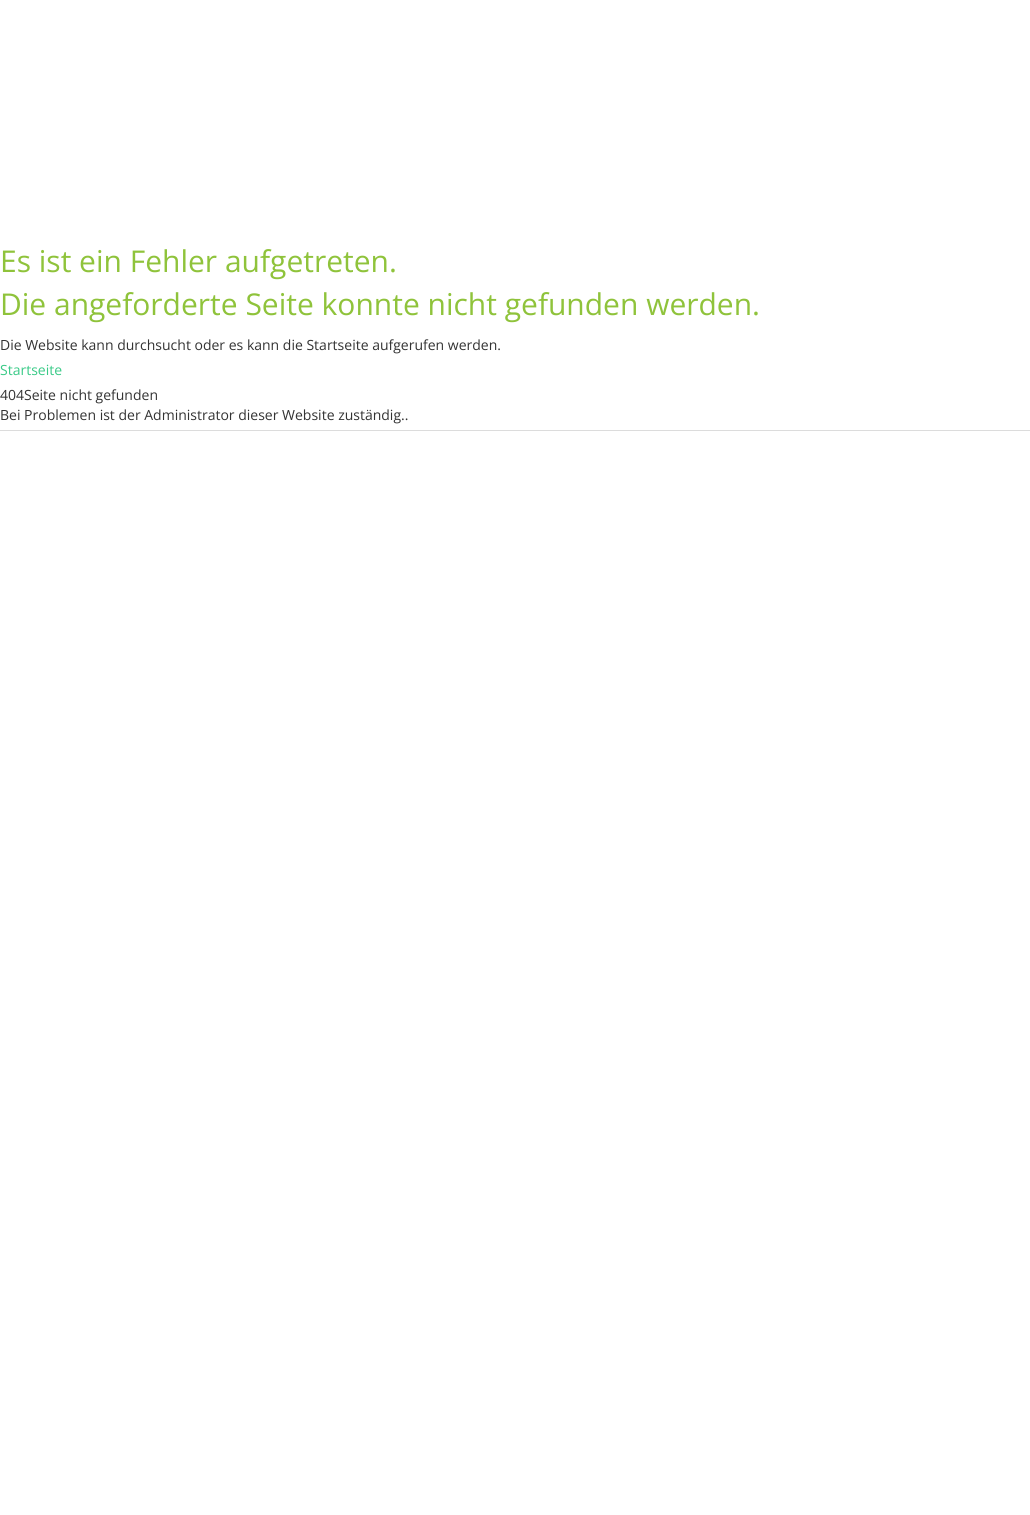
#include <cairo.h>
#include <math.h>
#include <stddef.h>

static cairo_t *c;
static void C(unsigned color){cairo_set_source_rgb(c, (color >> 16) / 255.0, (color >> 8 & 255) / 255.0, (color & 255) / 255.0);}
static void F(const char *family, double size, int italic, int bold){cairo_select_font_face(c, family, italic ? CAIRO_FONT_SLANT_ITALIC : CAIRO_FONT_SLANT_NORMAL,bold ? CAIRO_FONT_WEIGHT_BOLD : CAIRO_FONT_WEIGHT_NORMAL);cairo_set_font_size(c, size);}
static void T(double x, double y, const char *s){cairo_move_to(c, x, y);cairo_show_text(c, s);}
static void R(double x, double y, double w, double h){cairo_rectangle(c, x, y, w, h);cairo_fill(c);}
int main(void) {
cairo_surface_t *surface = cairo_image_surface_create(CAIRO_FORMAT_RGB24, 1030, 1515);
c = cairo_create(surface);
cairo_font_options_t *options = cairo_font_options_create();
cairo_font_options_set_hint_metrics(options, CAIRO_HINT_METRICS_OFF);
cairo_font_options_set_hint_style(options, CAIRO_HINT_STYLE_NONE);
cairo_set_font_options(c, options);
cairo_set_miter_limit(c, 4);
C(0xffffff);
cairo_paint(c);
F("Open Sans",30,0,0);
C(0x8fc33b);
T(0,272,"Es ist ein Fehler aufgetreten.");
T(0,315,"Die angeforderte Seite konnte nicht gefunden werden.");
F("Open Sans",14,0,0);
C(0x333333);
T(0,350,"Die Website kann durchsucht oder es kann die Startseite aufgerufen werden.");
C(0x39ca87);
T(0,375,"Startseite");
C(0x333333);
T(0,400,"404Seite nicht gefunden");
T(0,420,"Bei Problemen ist der Administrator dieser Website zuständig..");
C(0xdcdcdc);
R(0,430,1030,1);
cairo_surface_write_to_png(surface, "o.png");
cairo_font_options_destroy(options);
cairo_destroy(c);
cairo_surface_destroy(surface);
return 0;
}
